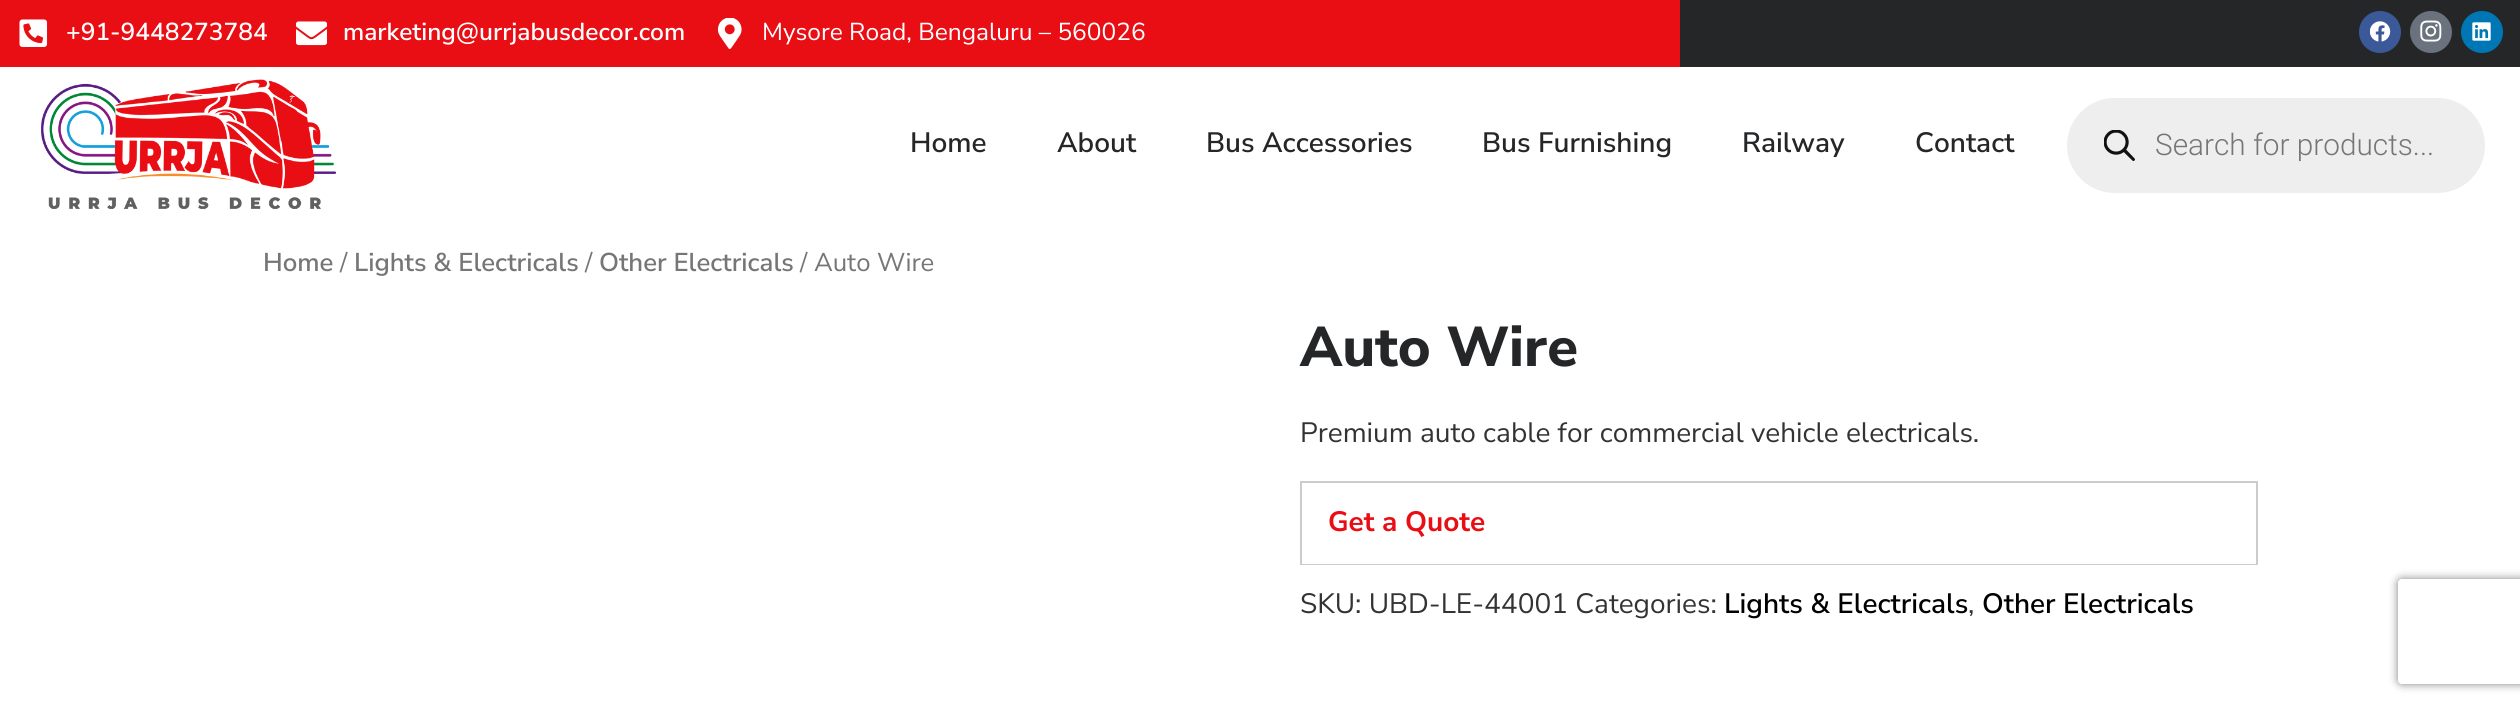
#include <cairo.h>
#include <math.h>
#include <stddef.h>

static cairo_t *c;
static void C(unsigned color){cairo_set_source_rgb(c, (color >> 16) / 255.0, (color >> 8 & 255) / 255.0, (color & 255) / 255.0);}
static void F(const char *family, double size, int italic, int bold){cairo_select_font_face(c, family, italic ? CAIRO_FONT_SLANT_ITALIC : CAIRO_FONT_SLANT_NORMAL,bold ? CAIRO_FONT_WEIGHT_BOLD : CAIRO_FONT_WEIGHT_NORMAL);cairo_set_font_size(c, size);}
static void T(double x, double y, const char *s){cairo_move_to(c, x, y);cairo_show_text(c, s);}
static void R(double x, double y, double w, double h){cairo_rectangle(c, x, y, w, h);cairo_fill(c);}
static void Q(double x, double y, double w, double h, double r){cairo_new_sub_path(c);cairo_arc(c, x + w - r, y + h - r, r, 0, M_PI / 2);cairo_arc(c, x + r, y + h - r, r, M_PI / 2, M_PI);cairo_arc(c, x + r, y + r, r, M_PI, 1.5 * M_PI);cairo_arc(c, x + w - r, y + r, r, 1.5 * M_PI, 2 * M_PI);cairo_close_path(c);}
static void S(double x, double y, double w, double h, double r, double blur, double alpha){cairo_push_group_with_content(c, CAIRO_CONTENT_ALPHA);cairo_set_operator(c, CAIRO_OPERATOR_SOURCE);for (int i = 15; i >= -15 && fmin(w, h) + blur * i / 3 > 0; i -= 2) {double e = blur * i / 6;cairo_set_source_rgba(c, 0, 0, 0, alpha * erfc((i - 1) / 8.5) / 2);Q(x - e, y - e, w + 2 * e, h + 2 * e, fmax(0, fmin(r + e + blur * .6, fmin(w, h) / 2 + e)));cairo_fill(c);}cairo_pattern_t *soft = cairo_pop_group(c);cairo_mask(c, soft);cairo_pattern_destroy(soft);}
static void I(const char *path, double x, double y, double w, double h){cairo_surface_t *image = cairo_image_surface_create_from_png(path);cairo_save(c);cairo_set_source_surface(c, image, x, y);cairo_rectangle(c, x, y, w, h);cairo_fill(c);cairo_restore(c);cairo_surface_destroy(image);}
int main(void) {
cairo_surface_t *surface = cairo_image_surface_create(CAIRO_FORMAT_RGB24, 2520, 708);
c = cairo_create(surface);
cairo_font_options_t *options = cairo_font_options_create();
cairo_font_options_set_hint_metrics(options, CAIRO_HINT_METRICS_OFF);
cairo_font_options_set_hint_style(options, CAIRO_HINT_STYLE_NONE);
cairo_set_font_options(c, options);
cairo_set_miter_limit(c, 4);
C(0xffffff);
cairo_paint(c);
C(0x252628);
R(1680,0,840,67);
C(0xe90d14);
R(0,0,1680,67);
I("1.png",19,19,29,28);
F("Nunito Sans SemiBold",24.5,0,0);
C(0xffffff);
T(66,40,"+91-9448273784");
I("2.png",296,21,31,25);
T(343,40,"marketing@urrjabusdecor.com");
I("3.png",717,18,25,31);
F("Nunito Sans",24.5,0,0);
T(762,40,"Mysore Road, Bengaluru – 560026");
C(0x3b5998);
cairo_new_path(c);
cairo_arc(c,2380,32,21,0,2 * M_PI);
cairo_fill(c);
I("4.png",2370,21,21,21);
C(0x69727d);
cairo_arc(c,2431,32,21,0,2 * M_PI);
cairo_fill(c);
I("5.png",2420,20,22,22);
C(0x0077b5);
cairo_arc(c,2482,32,21,0,2 * M_PI);
cairo_fill(c);
I("6.png",2472,22,19,19);
I("7.png",41,79,295,130);
F("Nunito Sans SemiBold",28,0,0);
C(0x252628);
T(910,152,"Home");
T(1057,152,"About");
T(1206,152,"Bus Accessories");
T(1482,152,"Bus Furnishing");
T(1742,152,"Railway");
T(1915,152,"Contact");
C(0xeeeeee);
Q(2067,98,418,95,47.5);
cairo_fill(c);
I("8.png",2104,130,31,31);
F("Roboto Light",29.75,0,0);
C(0x767676);
T(2155,155,"Search for products...");
F("Nunito Sans SemiBold",25.75,0,0);
T(263,271,"Home");
F("Nunito Sans",25.75,0,0);
T(340,271,"/");
F("Nunito Sans SemiBold",25.75,0,0);
T(354,271,"Lights & Electricals");
F("Nunito Sans",25.75,0,0);
T(585,271,"/");
F("Nunito Sans SemiBold",25.75,0,0);
T(599,271,"Other Electricals");
F("Nunito Sans",25.75,0,0);
T(800,271,"/ Auto Wire");
F("Nunito Sans ExtraBold",56,0,0);
C(0x252628);
T(1300,366,"Auto Wire");
F("Nunito Sans",28,0,0);
C(0x333333);
T(1300,442,"Premium auto cable for commercial vehicle electricals.");
cairo_rectangle(c,1301,482,956,82);
C(0xcccccc);
cairo_stroke(c);
C(0xffffff);
R(1302,563,954,1);
F("Nunito Sans",28,0,1);
C(0xe90d14);
T(1328,531,"Get a Quote");
F("Nunito Sans",28,0,0);
C(0x333333);
T(1300,613,"SKU: UBD-LE-44001 Categories:");
F("Nunito Sans SemiBold",28,0,0);
C(0x000000);
T(1724,613,"Lights & Electricals");
F("Nunito Sans",28,0,0);
C(0x333333);
T(1968,613,",");
F("Nunito Sans SemiBold",28,0,0);
C(0x000000);
T(1982,613,"Other Electricals");
cairo_save(c);
cairo_set_fill_rule(c,CAIRO_FILL_RULE_EVEN_ODD);
cairo_new_path(c);
cairo_move_to(c,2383,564);
cairo_line_to(c,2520,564);
cairo_line_to(c,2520,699);
cairo_line_to(c,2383,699);
cairo_close_path(c);
cairo_move_to(c,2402,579);
cairo_line_to(c,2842,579);
cairo_curve_to(c,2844,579,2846,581,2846,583);
cairo_line_to(c,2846,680);
cairo_curve_to(c,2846,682,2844,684,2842,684);
cairo_line_to(c,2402,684);
cairo_curve_to(c,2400,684,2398,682,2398,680);
cairo_line_to(c,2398,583);
cairo_curve_to(c,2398,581,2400,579,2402,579);
cairo_close_path(c);
cairo_clip(c);
C(0x808080);
S(2398,579,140,105,4,4.5,1);
cairo_restore(c);
cairo_surface_write_to_png(surface, "o.png");
cairo_font_options_destroy(options);
cairo_destroy(c);
cairo_surface_destroy(surface);
return 0;
}
